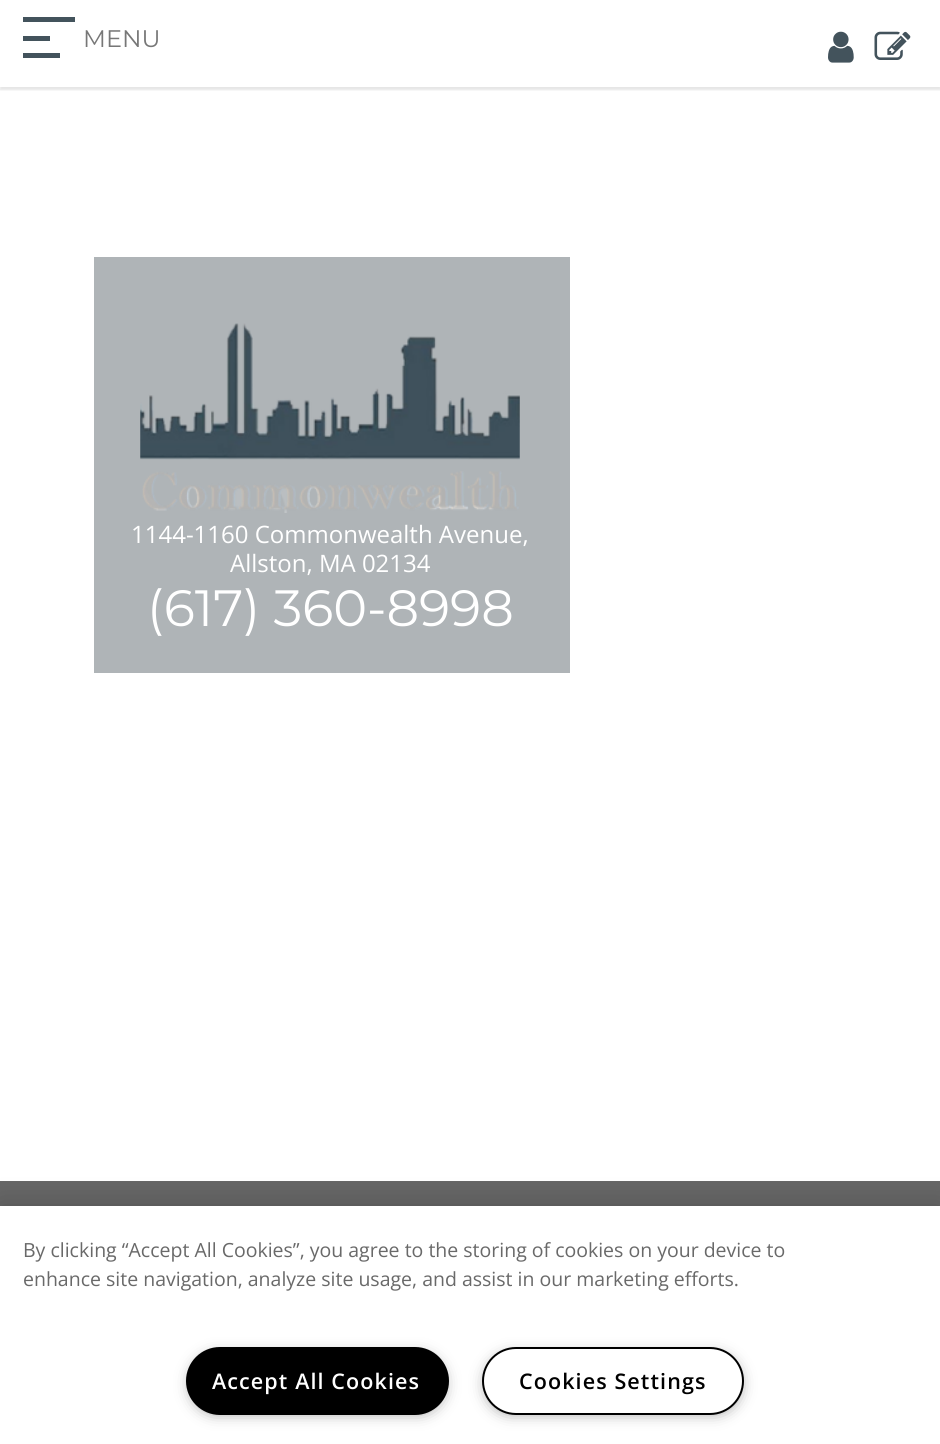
#include <cairo.h>
#include <math.h>
#include <stddef.h>

static cairo_t *c;
static void C(unsigned color){cairo_set_source_rgb(c, (color >> 16) / 255.0, (color >> 8 & 255) / 255.0, (color & 255) / 255.0);}
static void F(const char *family, double size, int italic, int bold){cairo_select_font_face(c, family, italic ? CAIRO_FONT_SLANT_ITALIC : CAIRO_FONT_SLANT_NORMAL,bold ? CAIRO_FONT_WEIGHT_BOLD : CAIRO_FONT_WEIGHT_NORMAL);cairo_set_font_size(c, size);}
static void T(double x, double y, const char *s){cairo_move_to(c, x, y);cairo_show_text(c, s);}
static void L(double x, double y, const char *s, double letter, double word){cairo_move_to(c, x, y);while (*s) {char ch[5] = {0};int n = 0;do ch[n++] = *s++; while ((*s & 0xC0) == 0x80);cairo_show_text(c, ch);cairo_rel_move_to(c, letter + word * (*ch == ' '), 0);}}
static void R(double x, double y, double w, double h){cairo_rectangle(c, x, y, w, h);cairo_fill(c);}
static void Q(double x, double y, double w, double h, double r){cairo_new_sub_path(c);cairo_arc(c, x + w - r, y + h - r, r, 0, M_PI / 2);cairo_arc(c, x + r, y + h - r, r, M_PI / 2, M_PI);cairo_arc(c, x + r, y + r, r, M_PI, 1.5 * M_PI);cairo_arc(c, x + w - r, y + r, r, 1.5 * M_PI, 2 * M_PI);cairo_close_path(c);}
static void S(double x, double y, double w, double h, double r, double blur, double alpha){cairo_push_group_with_content(c, CAIRO_CONTENT_ALPHA);cairo_set_operator(c, CAIRO_OPERATOR_SOURCE);for (int i = 15; i >= -15 && fmin(w, h) + blur * i / 3 > 0; i -= 2) {double e = blur * i / 6;cairo_set_source_rgba(c, 0, 0, 0, alpha * erfc((i - 1) / 8.5) / 2);Q(x - e, y - e, w + 2 * e, h + 2 * e, fmax(0, fmin(r + e + blur * .6, fmin(w, h) / 2 + e)));cairo_fill(c);}cairo_pattern_t *soft = cairo_pop_group(c);cairo_mask(c, soft);cairo_pattern_destroy(soft);}
static void I(const char *path, double x, double y, double w, double h){cairo_surface_t *image = cairo_image_surface_create_from_png(path);cairo_save(c);cairo_set_source_surface(c, image, x, y);cairo_rectangle(c, x, y, w, h);cairo_fill(c);cairo_restore(c);cairo_surface_destroy(image);}
int main(void) {
cairo_surface_t *surface = cairo_image_surface_create(CAIRO_FORMAT_RGB24, 940, 1444);
c = cairo_create(surface);
cairo_font_options_t *options = cairo_font_options_create();
cairo_font_options_set_hint_metrics(options, CAIRO_HINT_METRICS_OFF);
cairo_font_options_set_hint_style(options, CAIRO_HINT_STYLE_NONE);
cairo_set_font_options(c, options);
cairo_set_miter_limit(c, 4);
C(0xffffff);
cairo_paint(c);
cairo_save(c);
cairo_rectangle(c,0,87,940,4);
cairo_clip(c);
C(0x000000);
S(0,3,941,87,0,1,.1);
cairo_restore(c);
C(0x43535c);
R(23,17,52,5);
R(23,36,27,5);
R(23,53,37,5);
F("Montserrat Thin",24,0,0);
C(0x777777);
T(83,47,"MENU");
I("1.png",828,31,26,32);
I("2.png",874,31,37,29);
C(0xafb4b7);
R(94,257,476,416);
I("3.png",140,323,380,190);
F("Open Sans",24,0,0);
C(0xffffff);
T(131,543,"1144-1160 Commonwealth Avenue,");
T(230,572,"Allston, MA 02134");
F("Montserrat Thin",51,0,0);
T(147,626,"(617) 360-8998");
C(0x666666);
R(0,1181,940,25);
C(0x000000);
S(0,1206,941,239,0,13.5,.2);
C(0xffffff);
R(0,1206,940,238);
F("Open Sans",19.5,0,0);
C(0x696969);
T(23,1257,"By clicking “Accept All Cookies”, you agree to the storing of cookies on your device to");
T(23,1286,"enhance site navigation, analyze site usage, and assist in our marketing efforts.");
C(0x999999);
S(191,1355,253,58,29,7.5,1);
C(0x000000);
Q(187,1348,261,66,33);
cairo_fill_preserve(c);
cairo_stroke(c);
F("Open Sans SemiBold",21.5,0,0);
C(0xffffff);
L(212,1389,"Accept All Cookies",1.1,0);
C(0x999999);
S(486,1355,254,58,29,7.5,1);
C(0xffffff);
Q(483,1348,260,66,33);
cairo_fill_preserve(c);
C(0x000000);
cairo_stroke(c);
L(519,1389,"Cookies Settings",1.1,0);
cairo_surface_write_to_png(surface, "o.png");
cairo_font_options_destroy(options);
cairo_destroy(c);
cairo_surface_destroy(surface);
return 0;
}
